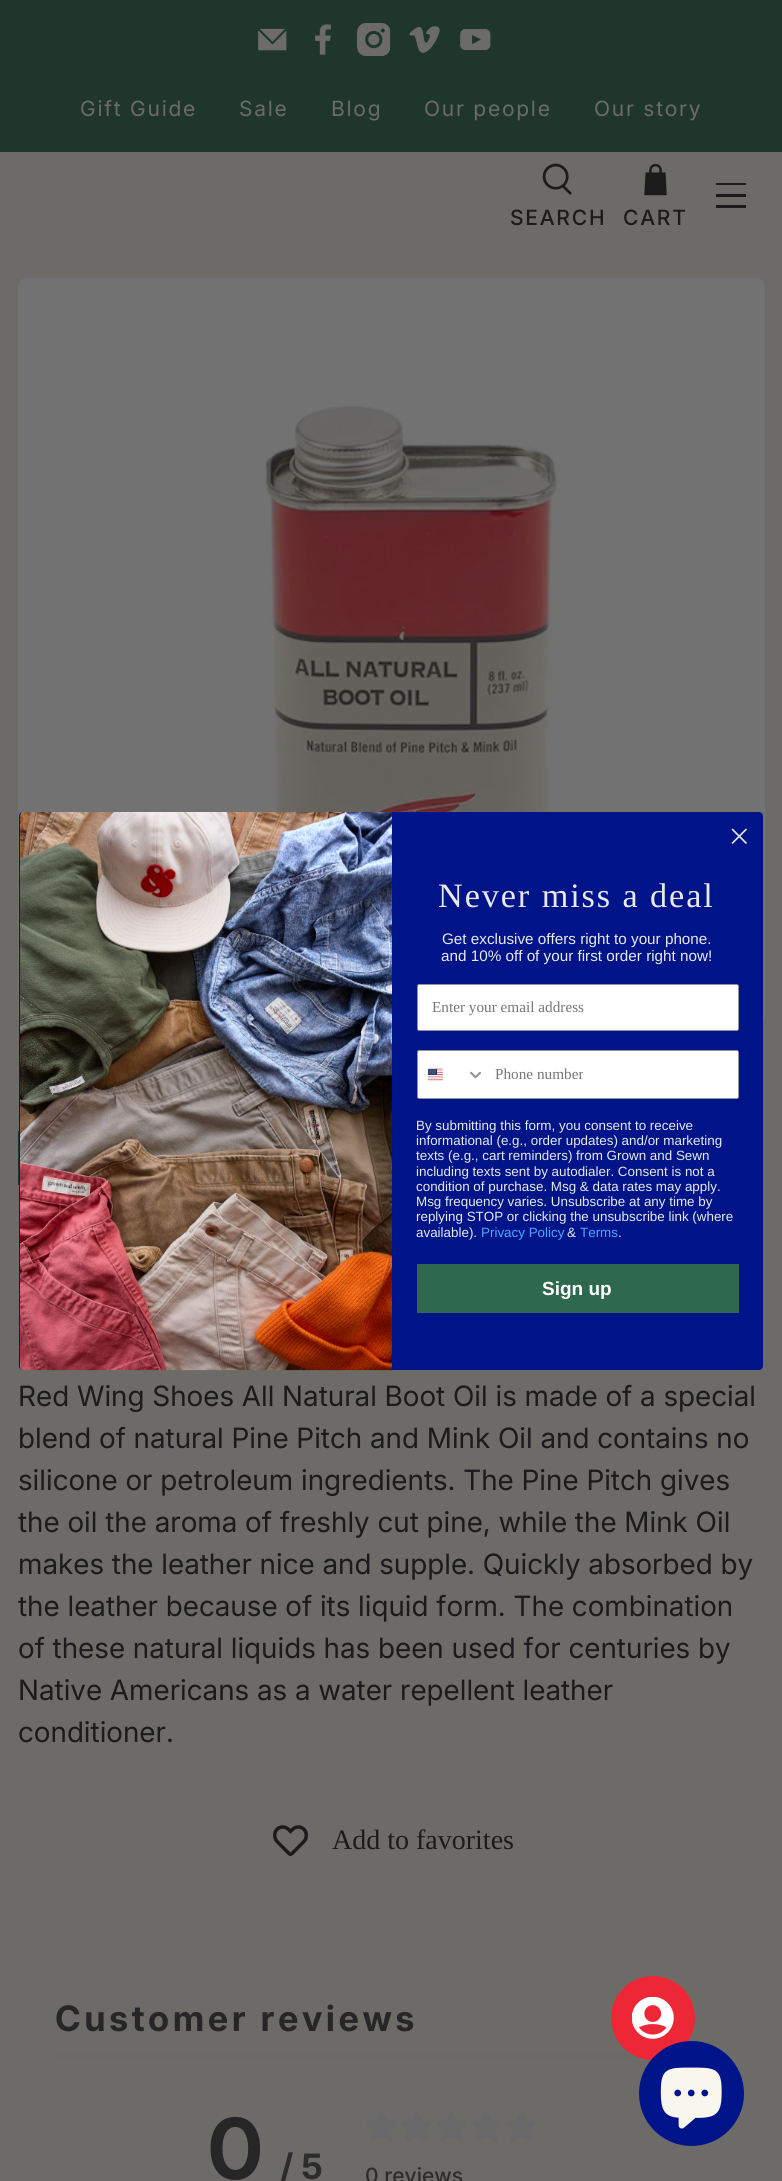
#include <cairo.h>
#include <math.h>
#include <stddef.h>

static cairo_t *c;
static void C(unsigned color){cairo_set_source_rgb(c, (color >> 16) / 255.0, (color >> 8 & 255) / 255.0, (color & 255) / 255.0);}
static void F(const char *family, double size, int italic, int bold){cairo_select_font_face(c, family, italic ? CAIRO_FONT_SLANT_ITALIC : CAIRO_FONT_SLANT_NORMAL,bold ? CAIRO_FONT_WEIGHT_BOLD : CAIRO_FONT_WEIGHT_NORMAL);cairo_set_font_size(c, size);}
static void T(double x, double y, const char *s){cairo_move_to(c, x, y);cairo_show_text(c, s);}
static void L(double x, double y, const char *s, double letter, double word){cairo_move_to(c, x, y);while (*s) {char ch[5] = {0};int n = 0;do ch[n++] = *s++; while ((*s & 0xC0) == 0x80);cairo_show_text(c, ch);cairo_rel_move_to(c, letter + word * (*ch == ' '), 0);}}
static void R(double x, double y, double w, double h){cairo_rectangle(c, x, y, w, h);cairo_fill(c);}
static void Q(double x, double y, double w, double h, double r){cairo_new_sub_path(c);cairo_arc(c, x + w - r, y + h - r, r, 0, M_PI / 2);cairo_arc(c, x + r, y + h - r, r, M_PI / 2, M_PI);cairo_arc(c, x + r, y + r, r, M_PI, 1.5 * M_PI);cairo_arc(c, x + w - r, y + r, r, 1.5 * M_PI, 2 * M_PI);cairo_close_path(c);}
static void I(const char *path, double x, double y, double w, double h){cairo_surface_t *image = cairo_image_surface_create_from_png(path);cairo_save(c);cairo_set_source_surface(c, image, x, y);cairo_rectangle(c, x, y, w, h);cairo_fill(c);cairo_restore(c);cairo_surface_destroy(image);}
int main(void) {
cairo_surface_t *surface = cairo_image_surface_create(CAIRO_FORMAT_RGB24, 782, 2181);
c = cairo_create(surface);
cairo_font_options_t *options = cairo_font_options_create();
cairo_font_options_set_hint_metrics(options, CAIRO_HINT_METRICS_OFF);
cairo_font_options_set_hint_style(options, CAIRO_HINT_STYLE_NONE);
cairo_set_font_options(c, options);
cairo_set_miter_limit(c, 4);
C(0x6c6b68);
cairo_paint(c);
C(0x1e362b);
R(0,0,782,152);
I("1.png",258,28,29,23);
I("2.png",315,24,16,31);
I("3.png",357,23,33,33);
I("4.png",409,26,31,27);
I("5.png",460,29,31,21);
F("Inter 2",21,0,0);
C(0x6c6b68);
L(80,116,"Gift Guide",1.75,0);
L(239,116,"Sale",1.75,0);
L(331,116,"Blog",1.75,0);
L(424,116,"Our people",1.75,0);
L(594,116,"Our story",1.75,0);
C(0x1b1b1b);
R(716,183,30,2);
R(716,194,30,3);
R(716,205,30,3);
I("6.png",542,163,30,32);
F("Inter Medium",21,0,0);
L(510,225,"SEARCH",1.75,0);
I("7.png",644,163,23,33);
L(623,225,"CART",1.75,0);
Q(22.5,282.5,738,739,4.5);
C(0x727272);
cairo_set_line_width(c,9);
cairo_stroke(c);
C(0x001489);
Q(19,812,744,558,4);
cairo_fill(c);
cairo_new_path(c);
cairo_move_to(c,732.5,829.5);
cairo_line_to(c,746,843);
cairo_move_to(c,732.5,843);
cairo_line_to(c,746,829.5);
cairo_close_path(c);
C(0xe3e3e3);
cairo_set_line_width(c,1.7);
cairo_set_line_cap(c,CAIRO_LINE_CAP_ROUND);
cairo_set_line_join(c,CAIRO_LINE_JOIN_ROUND);
cairo_stroke(c);
I("8.png",20,812,372,559);
F("Liberation Serif",34.25,0,0);
C(0xe9e9e9);
L(438,907,"Never miss a deal",1.9,0);
F("Liberation Sans",15.25,0,0);
T(442,944,"Get exclusive offers right to your phone.");
T(441,961,"and 10% off of your first order right now!");
C(0xffffff);
Q(417.45,984.45,321.1,46.1,2.05);
cairo_fill_preserve(c);
C(0x949596);
cairo_set_line_width(c,.9);
cairo_set_line_cap(c,CAIRO_LINE_CAP_BUTT);
cairo_set_line_join(c,CAIRO_LINE_JOIN_MITER);
cairo_stroke(c);
F("Liberation Serif",15.25,0,0);
C(0x767676);
T(432,1012,"Enter your email address");
C(0xffffff);
Q(417.45,1050.45,321.1,48.1,2.05);
cairo_fill_preserve(c);
C(0x949596);
cairo_stroke(c);
I("9.png",427,1068,16,13);
I("10.png",470,1071,11,8);
C(0x767676);
T(495,1079,"Phone number");
F("Liberation Sans",13.4,0,0);
C(0xe9e9e9);
T(416,1130,"By submitting this form, you consent to receive");
T(416,1145,"informational (e.g., order updates) and/or marketing");
T(416,1160,"texts (e.g., cart reminders) from Grown and Sewn");
T(416,1176,"including texts sent by autodialer. Consent is not a");
T(416,1191,"condition of purchase. Msg & data rates may apply.");
T(416,1206,"Msg frequency varies. Unsubscribe at any time by");
T(416,1221,"replying STOP or clicking the unsubscribe link (where");
T(416,1237,"available).");
C(0x4da6ff);
T(481,1237,"Privacy Policy");
C(0xe9e9e9);
T(567,1237,"&");
C(0x4da6ff);
T(580,1237,"Terms");
C(0xe9e9e9);
T(618,1237,".");
C(0x2e684e);
cairo_rectangle(c,419.5,1266.5,317,44);
cairo_fill_preserve(c);
cairo_set_line_width(c,5);
cairo_stroke(c);
F("Liberation Sans",19,0,1);
C(0xffffff);
T(542,1295,"Sign up");
I("11.png",27,287,729,525);
C(0x1e362b);
R(18,1131,1,54);
F("Inter",28,0,0);
C(0x1b1b1b);
T(18,1406,"Red Wing Shoes All Natural Boot Oil is made of a special");
T(18,1448,"blend of natural Pine Pitch and Mink Oil and contains no");
T(18,1490,"silicone or petroleum ingredients. The Pine Pitch gives");
T(18,1532,"the oil the aroma of freshly cut pine, while the Mink Oil");
T(18,1574,"makes the leather nice and supple. Quickly absorbed by");
T(18,1616,"the leather because of its liquid form. The combination");
T(18,1658,"of these natural liquids has been used for centuries by");
T(18,1700,"Native Americans as a water repellent leather");
T(18,1742,"conditioner.");
I("12.png",273,1825,35,31);
F("Liberation Serif",28,0,0);
T(332,1849,"Add to favorites");
C(0x69696a);
R(54,2055,674,2);
F("Inter",35,0,1);
C(0x262626);
L(55,2031,"Customer reviews",3.5,0);
F("Inter 2",84,0,1);
T(208,2179,"0");
F("Inter",35,0,1);
C(0x2c2c2c);
T(280,2179,"/ 5");
I("13.png",366,2111,31,31);
I("13.png",401,2111,31,31);
I("13.png",436,2111,31,31);
I("13.png",471,2111,31,31);
I("13.png",506,2111,31,31);
F("Inter Medium",21,0,0);
T(365,2183,"0 reviews");
C(0xee2737);
cairo_new_path(c);
cairo_arc(c,653,2018,42,0,2 * M_PI);
cairo_fill(c);
I("14.png",632,1997,42,42);
C(0x001489);
cairo_arc(c,691.5,2093.5,52.5,0,2 * M_PI);
cairo_fill(c);
I("15.png",660,2067,62,62);
cairo_surface_write_to_png(surface, "o.png");
cairo_font_options_destroy(options);
cairo_destroy(c);
cairo_surface_destroy(surface);
return 0;
}
